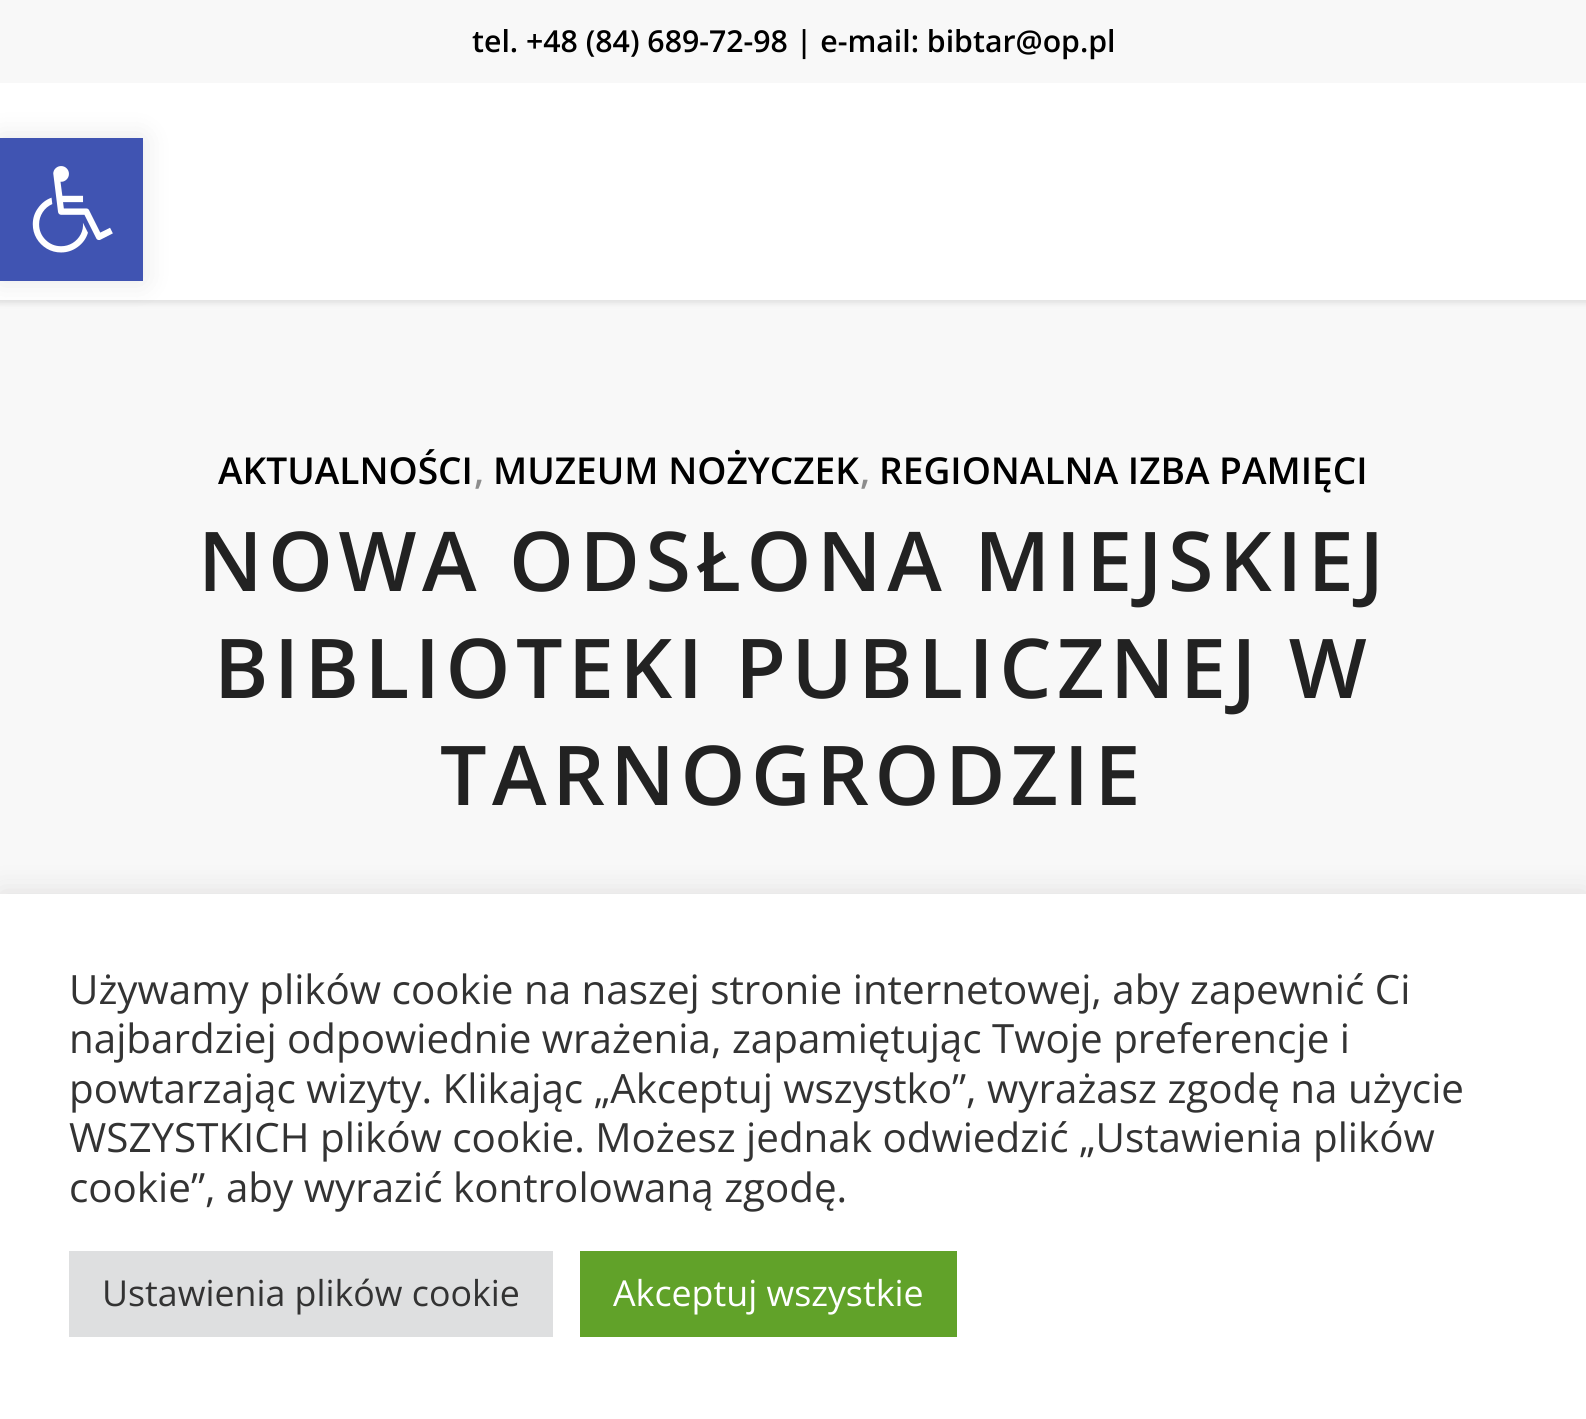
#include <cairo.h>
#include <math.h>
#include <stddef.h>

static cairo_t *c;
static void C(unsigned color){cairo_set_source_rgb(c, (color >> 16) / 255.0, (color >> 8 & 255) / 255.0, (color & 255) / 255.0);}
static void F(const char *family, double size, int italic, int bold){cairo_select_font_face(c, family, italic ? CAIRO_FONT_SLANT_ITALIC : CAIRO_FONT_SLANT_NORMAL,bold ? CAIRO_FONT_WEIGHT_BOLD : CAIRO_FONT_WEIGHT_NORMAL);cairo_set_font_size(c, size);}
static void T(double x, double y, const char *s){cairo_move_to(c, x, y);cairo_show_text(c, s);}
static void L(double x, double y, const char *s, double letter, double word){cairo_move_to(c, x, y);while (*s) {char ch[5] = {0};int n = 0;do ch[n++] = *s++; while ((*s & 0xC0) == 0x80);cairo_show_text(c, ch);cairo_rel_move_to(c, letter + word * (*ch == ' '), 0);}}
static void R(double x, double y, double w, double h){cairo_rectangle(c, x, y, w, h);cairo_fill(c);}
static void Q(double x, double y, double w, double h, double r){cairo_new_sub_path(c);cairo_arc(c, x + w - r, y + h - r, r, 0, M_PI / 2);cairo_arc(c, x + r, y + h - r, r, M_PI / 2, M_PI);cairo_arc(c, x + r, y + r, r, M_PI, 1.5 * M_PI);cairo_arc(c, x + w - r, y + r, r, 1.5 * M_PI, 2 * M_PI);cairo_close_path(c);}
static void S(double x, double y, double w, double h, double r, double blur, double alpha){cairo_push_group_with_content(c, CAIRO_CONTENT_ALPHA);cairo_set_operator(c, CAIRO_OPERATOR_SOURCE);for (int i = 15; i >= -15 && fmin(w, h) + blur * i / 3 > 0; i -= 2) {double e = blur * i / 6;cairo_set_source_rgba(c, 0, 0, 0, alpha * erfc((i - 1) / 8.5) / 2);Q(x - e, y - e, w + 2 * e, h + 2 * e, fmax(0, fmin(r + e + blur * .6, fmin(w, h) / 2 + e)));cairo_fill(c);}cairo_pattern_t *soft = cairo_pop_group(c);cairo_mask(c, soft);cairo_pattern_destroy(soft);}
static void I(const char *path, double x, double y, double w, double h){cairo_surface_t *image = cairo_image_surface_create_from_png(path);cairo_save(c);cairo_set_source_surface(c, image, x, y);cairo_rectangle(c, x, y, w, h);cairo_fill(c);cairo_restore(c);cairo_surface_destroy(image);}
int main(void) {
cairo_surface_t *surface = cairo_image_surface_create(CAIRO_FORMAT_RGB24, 1586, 1419);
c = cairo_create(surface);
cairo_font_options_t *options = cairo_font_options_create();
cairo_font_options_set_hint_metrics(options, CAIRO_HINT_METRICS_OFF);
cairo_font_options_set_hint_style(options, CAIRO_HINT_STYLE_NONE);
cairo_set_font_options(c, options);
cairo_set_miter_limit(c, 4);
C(0xf8f8f8);
cairo_paint(c);
C(0x000000);
S(-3,-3,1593,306,0,3,.1);
C(0xffffff);
R(0,83,1586,217);
C(0x000000);
S(0,138,143,143,0,14,.1);
C(0x4054b2);
R(0,138,143,143);
I("1.png",32,166,81,87);
C(0xf8f8f8);
R(0,0,1586,83);
F("Open Sans SemiBold",30.25,0,0);
C(0x000000);
T(472,52,"tel. +48 (84) 689-72-98 | e-mail: bibtar@op.pl");
F("Open Sans SemiBold",37.1,0,0);
T(218,484,"AKTUALNOŚCI");
C(0x8d8d8d);
T(474,484,",");
C(0x000000);
T(493,484,"MUZEUM NOŻYCZEK");
C(0x8d8d8d);
T(860,484,",");
C(0x000000);
T(879,484,"REGIONALNA IZBA PAMIĘCI");
F("Open Sans SemiBold",82.5,0,0);
C(0x222222);
L(198,591,"NOWA ODSŁONA MIEJSKIEJ",5.5,0);
L(214,698,"BIBLIOTEKI PUBLICZNEJ W",5.5,0);
L(440,805,"TARNOGRODZIE",5.5,0);
C(0xacabab);
S(0,891,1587,525,0,14,.3);
C(0xffffff);
R(0,894,1586,525);
F("Open Sans",40.35,0,0);
C(0x333333);
T(69,1004,"Używamy plików cookie na naszej stronie internetowej, aby zapewnić Ci");
T(69,1053,"najbardziej odpowiednie wrażenia, zapamiętując Twoje preferencje i");
T(69,1103,"powtarzając wizyty. Klikając „Akceptuj wszystko”, wyrażasz zgodę na użycie");
T(69,1152,"WSZYSTKICH plików cookie. Możesz jednak odwiedzić „Ustawienia plików");
T(69,1202,"cookie”, aby wyrazić kontrolowaną zgodę.");
C(0xdedfe0);
R(69,1251,484,86);
F("Open Sans",35.75,0,0);
C(0x333333);
T(102,1306,"Ustawienia plików cookie");
C(0x61a229);
R(580,1251,377,86);
C(0xffffff);
T(613,1306,"Akceptuj wszystkie");
cairo_surface_write_to_png(surface, "o.png");
cairo_font_options_destroy(options);
cairo_destroy(c);
cairo_surface_destroy(surface);
return 0;
}
